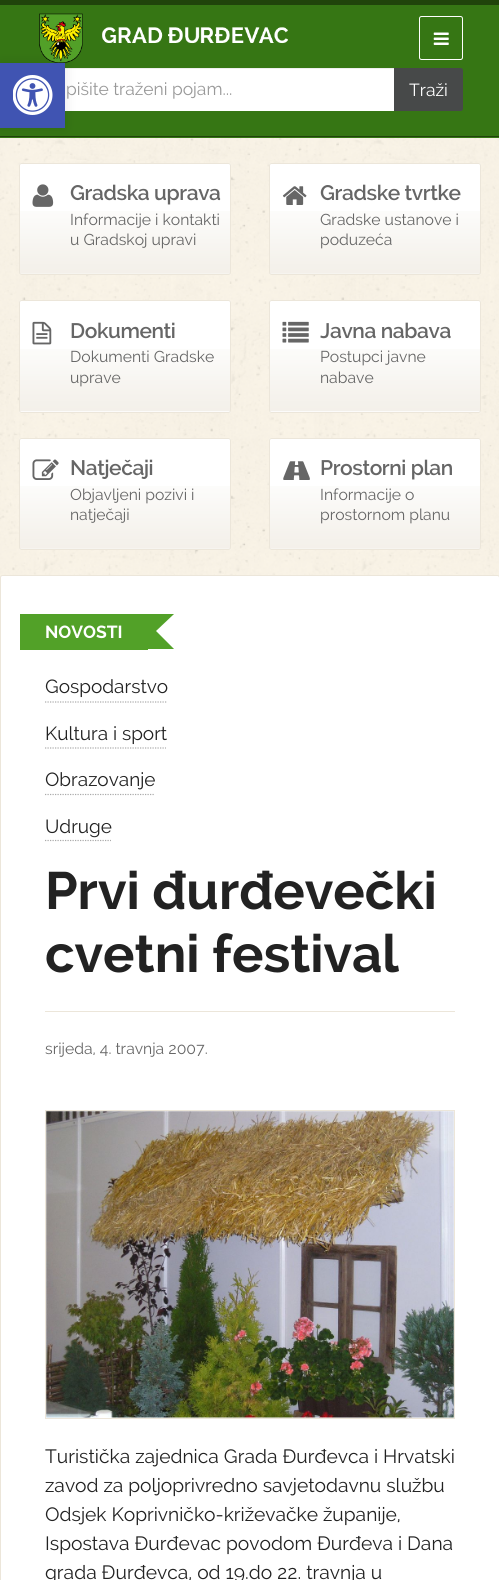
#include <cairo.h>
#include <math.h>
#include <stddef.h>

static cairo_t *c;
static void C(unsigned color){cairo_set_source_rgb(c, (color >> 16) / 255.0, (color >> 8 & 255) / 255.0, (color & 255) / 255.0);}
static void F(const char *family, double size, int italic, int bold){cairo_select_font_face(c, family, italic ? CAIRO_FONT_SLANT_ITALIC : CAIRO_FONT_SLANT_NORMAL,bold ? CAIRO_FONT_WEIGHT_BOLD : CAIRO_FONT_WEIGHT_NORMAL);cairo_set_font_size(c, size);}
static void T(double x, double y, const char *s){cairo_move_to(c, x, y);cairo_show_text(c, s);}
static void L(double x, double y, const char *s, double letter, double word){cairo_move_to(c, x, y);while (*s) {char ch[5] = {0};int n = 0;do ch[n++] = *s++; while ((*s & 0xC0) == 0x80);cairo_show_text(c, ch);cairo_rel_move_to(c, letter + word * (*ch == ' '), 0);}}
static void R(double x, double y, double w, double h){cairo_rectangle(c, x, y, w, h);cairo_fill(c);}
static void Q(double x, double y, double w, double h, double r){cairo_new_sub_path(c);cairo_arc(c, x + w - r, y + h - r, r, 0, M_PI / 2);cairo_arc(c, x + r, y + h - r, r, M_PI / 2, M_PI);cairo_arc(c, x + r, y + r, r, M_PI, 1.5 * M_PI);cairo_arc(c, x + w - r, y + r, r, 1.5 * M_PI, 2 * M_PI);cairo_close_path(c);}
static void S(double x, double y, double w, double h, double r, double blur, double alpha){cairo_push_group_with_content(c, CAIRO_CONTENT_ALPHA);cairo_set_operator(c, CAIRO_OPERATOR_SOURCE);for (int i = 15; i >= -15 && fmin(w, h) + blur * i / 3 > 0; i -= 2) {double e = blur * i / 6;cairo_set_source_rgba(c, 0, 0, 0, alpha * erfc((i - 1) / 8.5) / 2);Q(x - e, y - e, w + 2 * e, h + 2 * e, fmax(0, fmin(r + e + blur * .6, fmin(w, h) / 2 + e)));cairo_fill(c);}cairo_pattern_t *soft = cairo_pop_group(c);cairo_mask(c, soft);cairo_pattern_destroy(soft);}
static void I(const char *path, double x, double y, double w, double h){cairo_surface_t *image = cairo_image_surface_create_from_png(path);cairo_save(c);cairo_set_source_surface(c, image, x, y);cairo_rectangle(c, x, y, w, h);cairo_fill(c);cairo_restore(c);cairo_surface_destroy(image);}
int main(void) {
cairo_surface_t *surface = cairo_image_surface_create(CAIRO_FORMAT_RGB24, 499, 1580);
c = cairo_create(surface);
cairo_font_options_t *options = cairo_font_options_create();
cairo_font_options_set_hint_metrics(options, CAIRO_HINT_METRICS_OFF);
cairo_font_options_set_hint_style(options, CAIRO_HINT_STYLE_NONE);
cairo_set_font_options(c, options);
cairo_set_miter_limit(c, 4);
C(0xffffff);
cairo_paint(c);
I("1.png",0,138,499,440);
C(0x367614);
R(0,5,499,133);
C(0x20440b);
R(0,136,499,1);
C(0xffffff);
R(65,68,329,43);
cairo_set_source_rgba(c,0,0,0,0.07);
cairo_new_path(c);
cairo_move_to(c,40,69);
cairo_line_to(c,394,69);
cairo_line_to(c,394,68);
cairo_line_to(c,40,68);
cairo_curve_to(c,39,68,38,69,38,71);
cairo_curve_to(c,38,70,39,69,40,69);
cairo_close_path(c);
cairo_fill(c);
C(0x000000);
S(0,63,65,65,0,6,.1);
C(0x4054b2);
R(0,63,65,65);
I("2.png",13,75,40,40);
C(0x20440b);
R(0,0,499,5);
I("3.png",39,13,249,50);
Q(419.5,16.5,43,43,2);
C(0xffffff);
cairo_set_line_width(c,1);
cairo_stroke(c);
I("4.png",433,32,16,13);
F("Raleway",17.5,0,0);
C(0x999999);
T(66,95,"pišite traženi pojam...");
C(0x474949);
cairo_new_path(c);
cairo_move_to(c,394,68);
cairo_line_to(c,460.5,68);
cairo_curve_to(c,462,68,463,69,463,70.5);
cairo_line_to(c,463,108.5);
cairo_curve_to(c,463,110,462,111,460.5,111);
cairo_line_to(c,394,111);
cairo_close_path(c);
cairo_fill(c);
C(0xffffff);
T(409,96,"Traži");
Q(19,163,212,112,2.5);
cairo_fill(c);
I("5.png",19,211,212,63);
Q(19.5,163.5,211,111,2);
C(0xece6da);
cairo_stroke(c);
I("6.png",32,184,22,23);
F("Raleway SemiBold",21,0,0);
C(0x666666);
L(70,200,"Gradska uprava",-.4,0);
F("Raleway",15.75,0,0);
T(70,225,"Informacije i kontakti");
T(70,245,"u Gradskoj upravi");
C(0xffffff);
Q(269,163,212,112,2.5);
cairo_fill(c);
I("7.png",269,211,212,63);
Q(269.5,163.5,211,111,2);
C(0xece6da);
cairo_stroke(c);
I("8.png",282,186,25,19);
F("Raleway SemiBold",21,0,0);
C(0x666666);
L(320,200,"Gradske tvrtke",-.4,0);
F("Raleway",15.75,0,0);
T(320,225,"Gradske ustanove i");
T(320,245,"poduzeća");
C(0xffffff);
Q(19,300,212,113,2.5);
cairo_fill(c);
I("9.png",19,349,212,63);
Q(19.5,300.5,211,112,2);
C(0xece6da);
cairo_stroke(c);
I("10.png",32,321,20,24);
F("Raleway SemiBold",21,0,0);
C(0x666666);
L(70,338,"Dokumenti",-.4,0);
F("Raleway",15.75,0,0);
T(70,362,"Dokumenti Gradske");
T(70,383,"uprave");
C(0xffffff);
Q(269,300,212,113,2.5);
cairo_fill(c);
I("11.png",269,349,212,63);
Q(269.5,300.5,211,112,2);
C(0xece6da);
cairo_stroke(c);
I("12.png",282,321,27,22);
F("Raleway SemiBold",21,0,0);
C(0x666666);
L(320,338,"Javna nabava",-.4,0);
F("Raleway",15.75,0,0);
T(320,362,"Postupci javne");
T(320,383,"nabave");
C(0xffffff);
Q(19,438,212,112,2.5);
cairo_fill(c);
I("13.png",19,486,212,63);
Q(19.5,438.5,211,111,2);
C(0xece6da);
cairo_stroke(c);
I("14.png",32,459,27,21);
F("Raleway SemiBold",21,0,0);
C(0x666666);
L(70,475,"Natječaji",-.4,0);
F("Raleway",15.75,0,0);
T(70,500,"Objavljeni pozivi i");
T(70,520,"natječaji");
C(0xffffff);
Q(269,438,212,112,2.5);
cairo_fill(c);
I("15.png",269,486,212,63);
Q(269.5,438.5,211,111,2);
C(0xece6da);
cairo_stroke(c);
I("16.png",283,461,27,19);
F("Raleway SemiBold",21,0,0);
C(0x666666);
L(320,475,"Prostorni plan",-.4,0);
F("Raleway",15.75,0,0);
T(320,500,"Informacije o");
T(320,520,"prostornom planu");
C(0xffffff);
Q(.5,575.5,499,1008,2);
cairo_fill_preserve(c);
C(0xece6da);
cairo_stroke(c);
C(0x52a128);
R(20,614,128,36);
F("Raleway",17.5,0,1);
C(0xffffff);
T(45,638,"NOVOSTI");
C(0x52a128);
cairo_new_path(c);
cairo_move_to(c,145,614);
cairo_line_to(c,174,614);
cairo_line_to(c,156,631);
cairo_close_path(c);
cairo_move_to(c,174,649);
cairo_line_to(c,145,649);
cairo_line_to(c,156,631);
cairo_close_path(c);
cairo_fill(c);
R(148,618,8,26);
cairo_new_path(c);
cairo_move_to(c,45,702);
cairo_line_to(c,167.5,702);
C(0xaaaaaa);
cairo_set_line_width(c,1.2);
cairo_set_dash(c,(double[]){1.25,1.25},2,0);
cairo_stroke(c);
F("Raleway",19,0,0);
C(0x222222);
T(45,693,"Gospodarstvo");
cairo_new_path(c);
cairo_move_to(c,45,748);
cairo_line_to(c,166,748);
C(0xaaaaaa);
cairo_stroke(c);
C(0x222222);
T(45,740,"Kultura i sport");
cairo_new_path(c);
cairo_move_to(c,45,794.5);
cairo_line_to(c,155,794.5);
C(0xaaaaaa);
cairo_stroke(c);
C(0x222222);
T(45,786,"Obrazovanje");
cairo_new_path(c);
cairo_move_to(c,45,840.5);
cairo_line_to(c,111,840.5);
C(0xaaaaaa);
cairo_stroke(c);
C(0x222222);
T(45,833,"Udruge");
F("Raleway",52.5,0,1);
T(45,909,"Prvi đurđevečki");
T(45,972,"cvetni festival");
C(0xece6da);
R(45,1011,410,1);
F("Raleway",15.75,0,0);
C(0x666666);
T(45,1054,"srijeda, 4. travnja 2007.");
cairo_rectangle(c,45.5,1110.5,409,308);
C(0xece6da);
cairo_set_line_width(c,1);
cairo_set_dash(c,NULL,0,0);
cairo_stroke(c);
I("17.png",46,1111,408,307);
F("Raleway",19.25,0,0);
C(0x222222);
T(45,1463,"Turistička zajednica Grada Đurđevca i Hrvatski");
T(45,1492,"zavod za poljoprivredno savjetodavnu službu");
T(45,1521,"Odsjek Koprivničko-križevačke županije,");
T(45,1550,"Ispostava Đurđevac povodom Đurđeva i Dana");
T(45,1579,"grada Đurđevca, od 19.do 22. travnja u");
cairo_surface_write_to_png(surface, "o.png");
cairo_font_options_destroy(options);
cairo_destroy(c);
cairo_surface_destroy(surface);
return 0;
}
